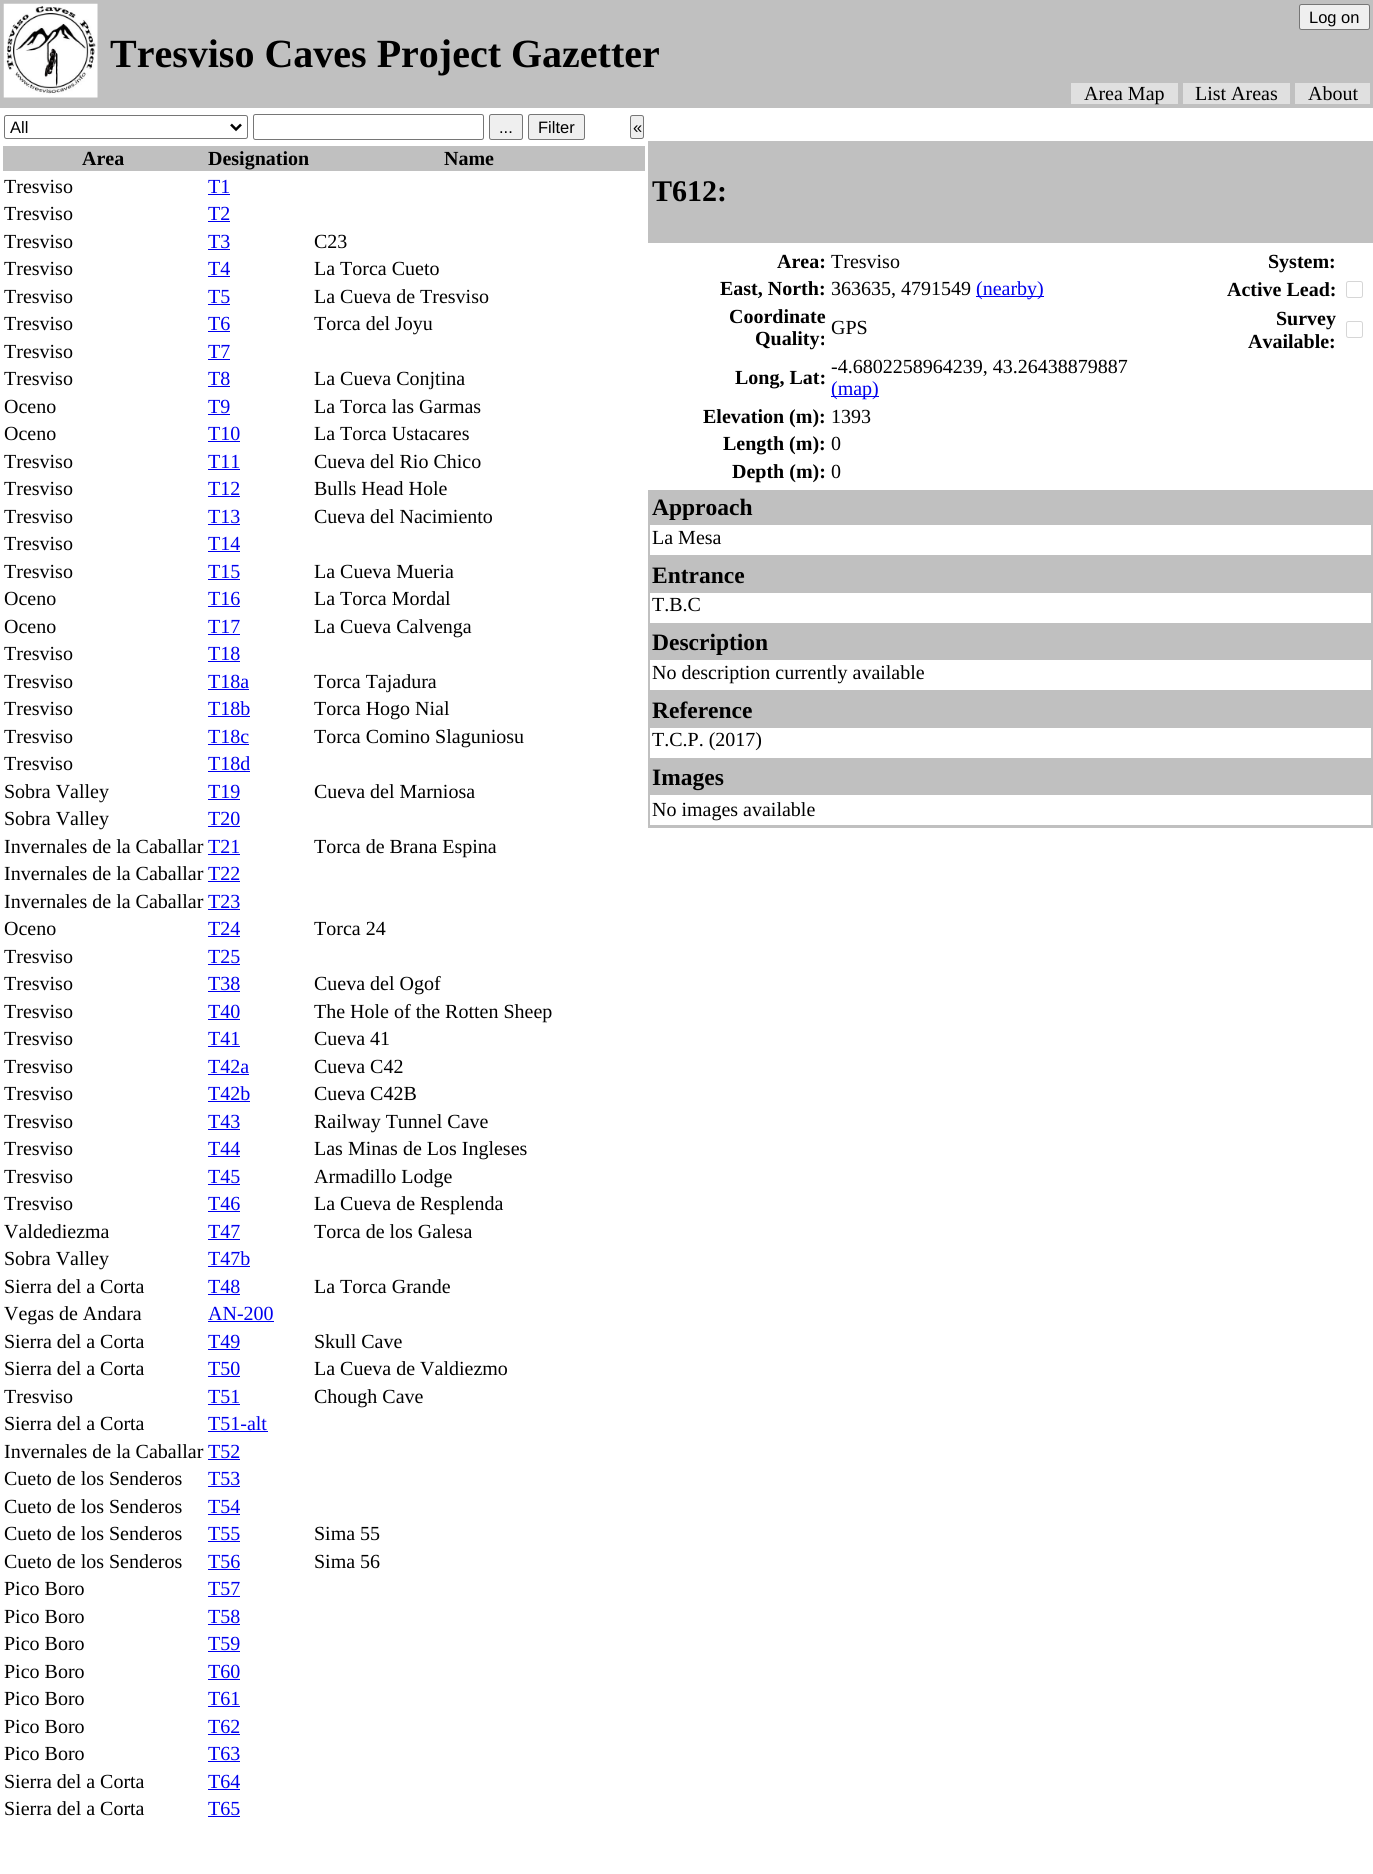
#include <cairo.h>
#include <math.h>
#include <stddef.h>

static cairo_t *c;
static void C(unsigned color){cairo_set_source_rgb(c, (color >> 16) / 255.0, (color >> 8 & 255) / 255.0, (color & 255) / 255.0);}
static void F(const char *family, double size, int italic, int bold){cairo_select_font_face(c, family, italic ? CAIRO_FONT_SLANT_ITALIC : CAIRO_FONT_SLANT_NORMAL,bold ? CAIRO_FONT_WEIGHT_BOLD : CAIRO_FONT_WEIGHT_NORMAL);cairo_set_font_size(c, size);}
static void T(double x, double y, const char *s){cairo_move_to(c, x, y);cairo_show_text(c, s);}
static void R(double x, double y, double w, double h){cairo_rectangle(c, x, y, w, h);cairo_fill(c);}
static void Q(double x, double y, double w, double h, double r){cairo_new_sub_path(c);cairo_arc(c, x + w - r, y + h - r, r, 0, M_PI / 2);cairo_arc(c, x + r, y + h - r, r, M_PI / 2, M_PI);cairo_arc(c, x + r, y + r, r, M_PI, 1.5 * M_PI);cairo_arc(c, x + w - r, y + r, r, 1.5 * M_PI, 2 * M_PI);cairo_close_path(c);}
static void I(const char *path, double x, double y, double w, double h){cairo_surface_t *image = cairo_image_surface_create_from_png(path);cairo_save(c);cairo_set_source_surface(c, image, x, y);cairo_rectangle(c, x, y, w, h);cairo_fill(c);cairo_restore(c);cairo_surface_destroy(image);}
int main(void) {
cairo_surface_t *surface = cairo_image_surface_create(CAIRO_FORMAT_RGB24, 1373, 1874);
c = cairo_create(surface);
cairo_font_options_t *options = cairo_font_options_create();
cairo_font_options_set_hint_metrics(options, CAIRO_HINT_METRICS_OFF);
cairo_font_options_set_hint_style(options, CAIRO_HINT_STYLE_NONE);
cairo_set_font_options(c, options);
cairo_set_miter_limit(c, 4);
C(0xffffff);
cairo_paint(c);
C(0xc0c0c0);
R(0,0,1373,108);
C(0xefefef);
Q(1299.5,4.5,70,25,2);
cairo_fill_preserve(c);
C(0x767676);
cairo_set_line_width(c,1);
cairo_stroke(c);
F("Liberation Sans",16.5,0,0);
C(0x000000);
T(1309,23,"Log on");
I("1.png",3,3,95,95);
F("Liberation Serif",40,0,1);
T(110,67,"Tresviso Caves Project Gazetter");
C(0xe0e0e0);
R(1071,83,107,21);
F("Liberation Serif",20,0,0);
C(0x000000);
T(1084,100,"Area Map");
C(0xe0e0e0);
R(1183,83,107,21);
C(0x000000);
T(1195,100,"List Areas");
C(0xe0e0e0);
R(1295,83,75,21);
C(0x000000);
T(1308,100,"About");
Q(4.5,115.5,243,23,2);
C(0x767676);
cairo_stroke(c);
cairo_new_path(c);
cairo_move_to(c,231,124.5);
cairo_line_to(c,236,129.5);
cairo_line_to(c,241,124.5);
C(0x000000);
cairo_set_line_width(c,2.5);
cairo_stroke(c);
F("Liberation Sans",16.5,0,0);
T(10,133,"All");
Q(253.5,114.5,230,25,2);
C(0x767676);
cairo_set_line_width(c,1);
cairo_stroke(c);
C(0xefefef);
Q(489.5,114.5,33,25,2);
cairo_fill_preserve(c);
C(0x767676);
cairo_stroke(c);
C(0x000000);
T(499,133,"...");
C(0xefefef);
Q(528.5,114.5,56,25,2);
cairo_fill_preserve(c);
C(0x767676);
cairo_stroke(c);
C(0x000000);
T(538,133,"Filter");
C(0xefefef);
Q(630.5,115.5,13,23,2);
cairo_fill_preserve(c);
C(0x767676);
cairo_stroke(c);
C(0x000000);
T(633,133,"«");
C(0xc0c0c0);
R(3,146,642,25);
F("Liberation Serif",20,0,1);
C(0x000000);
T(82,165,"Area");
T(208,165,"Designation");
T(444,165,"Name");
F("Liberation Serif",20,0,0);
T(4,193,"Tresviso");
C(0x0000ee);
T(208,193,"T1");
R(208,194,22,1);
C(0x000000);
T(4,220,"Tresviso");
C(0x0000ee);
T(208,220,"T2");
R(208,221,22,1);
C(0x000000);
T(4,248,"Tresviso");
C(0x0000ee);
T(208,248,"T3");
R(208,249,22,1);
C(0x000000);
T(314,248,"C23");
T(4,275,"Tresviso");
C(0x0000ee);
T(208,275,"T4");
R(208,276,22,1);
C(0x000000);
T(314,275,"La Torca Cueto");
T(4,303,"Tresviso");
C(0x0000ee);
T(208,303,"T5");
R(208,304,22,1);
C(0x000000);
T(314,303,"La Cueva de Tresviso");
T(4,330,"Tresviso");
C(0x0000ee);
T(208,330,"T6");
R(208,331,22,1);
C(0x000000);
T(314,330,"Torca del Joyu");
T(4,358,"Tresviso");
C(0x0000ee);
T(208,358,"T7");
R(208,359,22,1);
C(0x000000);
T(4,385,"Tresviso");
C(0x0000ee);
T(208,385,"T8");
R(208,386,22,1);
C(0x000000);
T(314,385,"La Cueva Conjtina");
T(4,413,"Oceno");
C(0x0000ee);
T(208,413,"T9");
R(208,414,22,1);
C(0x000000);
T(314,413,"La Torca las Garmas");
T(4,440,"Oceno");
C(0x0000ee);
T(208,440,"T10");
R(208,441,32,1);
C(0x000000);
T(314,440,"La Torca Ustacares");
T(4,468,"Tresviso");
C(0x0000ee);
T(208,468,"T11");
R(208,469,32,1);
C(0x000000);
T(314,468,"Cueva del Rio Chico");
T(4,495,"Tresviso");
C(0x0000ee);
T(208,495,"T12");
R(208,496,32,1);
C(0x000000);
T(314,495,"Bulls Head Hole");
T(4,523,"Tresviso");
C(0x0000ee);
T(208,523,"T13");
R(208,524,32,1);
C(0x000000);
T(314,523,"Cueva del Nacimiento");
T(4,550,"Tresviso");
C(0x0000ee);
T(208,550,"T14");
R(208,551,32,1);
C(0x000000);
T(4,578,"Tresviso");
C(0x0000ee);
T(208,578,"T15");
R(208,579,32,1);
C(0x000000);
T(314,578,"La Cueva Mueria");
T(4,605,"Oceno");
C(0x0000ee);
T(208,605,"T16");
R(208,606,32,1);
C(0x000000);
T(314,605,"La Torca Mordal");
T(4,633,"Oceno");
C(0x0000ee);
T(208,633,"T17");
R(208,634,32,1);
C(0x000000);
T(314,633,"La Cueva Calvenga");
T(4,660,"Tresviso");
C(0x0000ee);
T(208,660,"T18");
R(208,661,32,1);
C(0x000000);
T(4,688,"Tresviso");
C(0x0000ee);
T(208,688,"T18a");
R(208,689,41,1);
C(0x000000);
T(314,688,"Torca Tajadura");
T(4,715,"Tresviso");
C(0x0000ee);
T(208,715,"T18b");
R(208,716,42,1);
C(0x000000);
T(314,715,"Torca Hogo Nial");
T(4,743,"Tresviso");
C(0x0000ee);
T(208,743,"T18c");
R(208,744,41,1);
C(0x000000);
T(314,743,"Torca Comino Slaguniosu");
T(4,770,"Tresviso");
C(0x0000ee);
T(208,770,"T18d");
R(208,771,42,1);
C(0x000000);
T(4,798,"Sobra Valley");
C(0x0000ee);
T(208,798,"T19");
R(208,799,32,1);
C(0x000000);
T(314,798,"Cueva del Marniosa");
T(4,825,"Sobra Valley");
C(0x0000ee);
T(208,825,"T20");
R(208,826,32,1);
C(0x000000);
T(4,853,"Invernales de la Caballar");
C(0x0000ee);
T(208,853,"T21");
R(208,854,32,1);
C(0x000000);
T(314,853,"Torca de Brana Espina");
T(4,880,"Invernales de la Caballar");
C(0x0000ee);
T(208,880,"T22");
R(208,881,32,1);
C(0x000000);
T(4,908,"Invernales de la Caballar");
C(0x0000ee);
T(208,908,"T23");
R(208,909,32,1);
C(0x000000);
T(4,935,"Oceno");
C(0x0000ee);
T(208,935,"T24");
R(208,936,32,1);
C(0x000000);
T(314,935,"Torca 24");
T(4,963,"Tresviso");
C(0x0000ee);
T(208,963,"T25");
R(208,964,32,1);
C(0x000000);
T(4,990,"Tresviso");
C(0x0000ee);
T(208,990,"T38");
R(208,991,32,1);
C(0x000000);
T(314,990,"Cueva del Ogof");
T(4,1018,"Tresviso");
C(0x0000ee);
T(208,1018,"T40");
R(208,1019,32,1);
C(0x000000);
T(314,1018,"The Hole of the Rotten Sheep");
T(4,1045,"Tresviso");
C(0x0000ee);
T(208,1045,"T41");
R(208,1046,32,1);
C(0x000000);
T(314,1045,"Cueva 41");
T(4,1073,"Tresviso");
C(0x0000ee);
T(208,1073,"T42a");
R(208,1074,41,1);
C(0x000000);
T(314,1073,"Cueva C42");
T(4,1100,"Tresviso");
C(0x0000ee);
T(208,1100,"T42b");
R(208,1101,42,1);
C(0x000000);
T(314,1100,"Cueva C42B");
T(4,1128,"Tresviso");
C(0x0000ee);
T(208,1128,"T43");
R(208,1129,32,1);
C(0x000000);
T(314,1128,"Railway Tunnel Cave");
T(4,1155,"Tresviso");
C(0x0000ee);
T(208,1155,"T44");
R(208,1156,32,1);
C(0x000000);
T(314,1155,"Las Minas de Los Ingleses");
T(4,1183,"Tresviso");
C(0x0000ee);
T(208,1183,"T45");
R(208,1184,32,1);
C(0x000000);
T(314,1183,"Armadillo Lodge");
T(4,1210,"Tresviso");
C(0x0000ee);
T(208,1210,"T46");
R(208,1211,32,1);
C(0x000000);
T(314,1210,"La Cueva de Resplenda");
T(4,1238,"Valdediezma");
C(0x0000ee);
T(208,1238,"T47");
R(208,1239,32,1);
C(0x000000);
T(314,1238,"Torca de los Galesa");
T(4,1265,"Sobra Valley");
C(0x0000ee);
T(208,1265,"T47b");
R(208,1266,42,1);
C(0x000000);
T(4,1293,"Sierra del a Corta");
C(0x0000ee);
T(208,1293,"T48");
R(208,1294,32,1);
C(0x000000);
T(314,1293,"La Torca Grande");
T(4,1320,"Vegas de Andara");
C(0x0000ee);
T(208,1320,"AN-200");
R(208,1321,66,1);
C(0x000000);
T(4,1348,"Sierra del a Corta");
C(0x0000ee);
T(208,1348,"T49");
R(208,1349,32,1);
C(0x000000);
T(314,1348,"Skull Cave");
T(4,1375,"Sierra del a Corta");
C(0x0000ee);
T(208,1375,"T50");
R(208,1376,32,1);
C(0x000000);
T(314,1375,"La Cueva de Valdiezmo");
T(4,1403,"Tresviso");
C(0x0000ee);
T(208,1403,"T51");
R(208,1404,32,1);
C(0x000000);
T(314,1403,"Chough Cave");
T(4,1430,"Sierra del a Corta");
C(0x0000ee);
T(208,1430,"T51-alt");
R(208,1431,60,1);
C(0x000000);
T(4,1458,"Invernales de la Caballar");
C(0x0000ee);
T(208,1458,"T52");
R(208,1459,32,1);
C(0x000000);
T(4,1485,"Cueto de los Senderos");
C(0x0000ee);
T(208,1485,"T53");
R(208,1486,32,1);
C(0x000000);
T(4,1513,"Cueto de los Senderos");
C(0x0000ee);
T(208,1513,"T54");
R(208,1514,32,1);
C(0x000000);
T(4,1540,"Cueto de los Senderos");
C(0x0000ee);
T(208,1540,"T55");
R(208,1541,32,1);
C(0x000000);
T(314,1540,"Sima 55");
T(4,1568,"Cueto de los Senderos");
C(0x0000ee);
T(208,1568,"T56");
R(208,1569,32,1);
C(0x000000);
T(314,1568,"Sima 56");
T(4,1595,"Pico Boro");
C(0x0000ee);
T(208,1595,"T57");
R(208,1596,32,1);
C(0x000000);
T(4,1623,"Pico Boro");
C(0x0000ee);
T(208,1623,"T58");
R(208,1624,32,1);
C(0x000000);
T(4,1650,"Pico Boro");
C(0x0000ee);
T(208,1650,"T59");
R(208,1651,32,1);
C(0x000000);
T(4,1678,"Pico Boro");
C(0x0000ee);
T(208,1678,"T60");
R(208,1679,32,1);
C(0x000000);
T(4,1705,"Pico Boro");
C(0x0000ee);
T(208,1705,"T61");
R(208,1706,32,1);
C(0x000000);
T(4,1733,"Pico Boro");
C(0x0000ee);
T(208,1733,"T62");
R(208,1734,32,1);
C(0x000000);
T(4,1760,"Pico Boro");
C(0x0000ee);
T(208,1760,"T63");
R(208,1761,32,1);
C(0x000000);
T(4,1788,"Sierra del a Corta");
C(0x0000ee);
T(208,1788,"T64");
R(208,1789,32,1);
C(0x000000);
T(4,1815,"Sierra del a Corta");
C(0x0000ee);
T(208,1815,"T65");
R(208,1816,32,1);
C(0xc0c0c0);
R(648,141,725,102);
F("Liberation Serif",30,0,1);
C(0x000000);
T(652,201,"T612:");
F("Liberation Serif",20,0,1);
T(777,268,"Area:");
F("Liberation Serif",20,0,0);
T(831,268,"Tresviso");
F("Liberation Serif",20,0,1);
T(720,295,"East, North:");
F("Liberation Serif",20,0,0);
T(831,295,"363635, 4791549");
C(0x0000ee);
R(976,296,68,1);
T(976,295,"(nearby)");
F("Liberation Serif",20,0,1);
C(0x000000);
T(729,323,"Coordinate");
T(755,345,"Quality:");
F("Liberation Serif",20,0,0);
T(831,334,"GPS");
F("Liberation Serif",20,0,1);
T(735,384,"Long, Lat:");
F("Liberation Serif",20,0,0);
T(831,373,"-4.6802258964239, 43.26438879887");
C(0x0000ee);
R(831,396,48,1);
T(831,395,"(map)");
F("Liberation Serif",20,0,1);
C(0x000000);
T(703,423,"Elevation (m):");
F("Liberation Serif",20,0,0);
T(831,423,"1393");
F("Liberation Serif",20,0,1);
T(723,450,"Length (m):");
F("Liberation Serif",20,0,0);
T(831,450,"0");
F("Liberation Serif",20,0,1);
T(732,478,"Depth (m):");
F("Liberation Serif",20,0,0);
T(831,478,"0");
F("Liberation Serif",20,0,1);
T(1268,268,"System:");
T(1227,296,"Active Lead:");
Q(1346.5,281.5,16,16,2);
C(0xd6d6d6);
cairo_stroke(c);
C(0x000000);
T(1276,325,"Survey");
T(1248,348,"Available:");
Q(1346.5,321.5,16,16,2);
C(0xd6d6d6);
cairo_stroke(c);
C(0xc0c0c0);
R(648,490,725,338);
F("Liberation Serif",23.5,0,1);
C(0x000000);
T(652,515,"Approach");
C(0xffffff);
R(650,525,721,30);
F("Liberation Serif",20,0,0);
C(0x000000);
T(652,544,"La Mesa");
F("Liberation Serif",23.5,0,1);
T(652,583,"Entrance");
C(0xffffff);
R(650,593,721,30);
F("Liberation Serif",20,0,0);
C(0x000000);
T(652,611,"T.B.C");
F("Liberation Serif",23.5,0,1);
T(652,650,"Description");
C(0xffffff);
R(650,660,721,30);
F("Liberation Serif",20,0,0);
C(0x000000);
T(652,679,"No description currently available");
F("Liberation Serif",23.5,0,1);
T(652,718,"Reference");
C(0xffffff);
R(650,728,721,30);
F("Liberation Serif",20,0,0);
C(0x000000);
T(652,746,"T.C.P. (2017)");
F("Liberation Serif",23.5,0,1);
T(652,785,"Images");
C(0xffffff);
R(650,795,721,30);
F("Liberation Serif",20,0,0);
C(0x000000);
T(652,816,"No images available");
cairo_surface_write_to_png(surface, "o.png");
cairo_font_options_destroy(options);
cairo_destroy(c);
cairo_surface_destroy(surface);
return 0;
}
